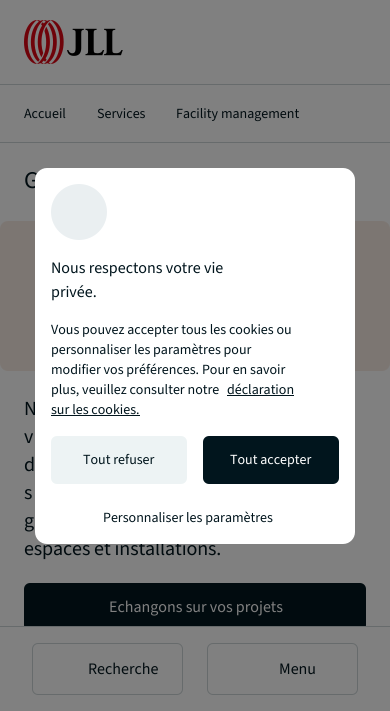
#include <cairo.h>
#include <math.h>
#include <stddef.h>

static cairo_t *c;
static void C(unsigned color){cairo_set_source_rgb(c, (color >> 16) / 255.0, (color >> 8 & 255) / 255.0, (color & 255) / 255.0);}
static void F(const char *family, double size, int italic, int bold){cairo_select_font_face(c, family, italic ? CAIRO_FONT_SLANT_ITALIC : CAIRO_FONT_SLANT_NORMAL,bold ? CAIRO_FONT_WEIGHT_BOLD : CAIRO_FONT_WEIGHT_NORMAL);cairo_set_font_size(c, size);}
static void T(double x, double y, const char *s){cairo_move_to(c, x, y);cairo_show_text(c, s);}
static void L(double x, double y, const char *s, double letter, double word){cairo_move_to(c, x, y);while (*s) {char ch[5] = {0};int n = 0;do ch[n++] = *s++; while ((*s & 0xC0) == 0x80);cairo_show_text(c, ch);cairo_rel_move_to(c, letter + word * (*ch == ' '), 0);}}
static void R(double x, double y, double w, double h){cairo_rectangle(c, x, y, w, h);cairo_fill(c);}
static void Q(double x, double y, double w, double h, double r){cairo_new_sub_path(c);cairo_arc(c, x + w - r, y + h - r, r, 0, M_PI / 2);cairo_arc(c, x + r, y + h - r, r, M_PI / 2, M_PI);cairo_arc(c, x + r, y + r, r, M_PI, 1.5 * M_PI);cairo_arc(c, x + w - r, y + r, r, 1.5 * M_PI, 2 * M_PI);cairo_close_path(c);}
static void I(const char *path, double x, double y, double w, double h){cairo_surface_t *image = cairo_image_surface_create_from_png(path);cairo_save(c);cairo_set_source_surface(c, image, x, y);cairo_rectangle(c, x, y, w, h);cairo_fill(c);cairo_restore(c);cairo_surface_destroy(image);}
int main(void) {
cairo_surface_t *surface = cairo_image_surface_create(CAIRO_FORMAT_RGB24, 390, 711);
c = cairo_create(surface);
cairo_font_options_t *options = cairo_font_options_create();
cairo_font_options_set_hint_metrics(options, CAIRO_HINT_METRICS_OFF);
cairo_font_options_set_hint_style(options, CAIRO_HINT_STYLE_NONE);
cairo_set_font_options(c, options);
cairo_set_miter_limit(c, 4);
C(0x808080);
cairo_paint(c);
C(0x676b6c);
R(0,142,390,1);
F("Source Sans 3",14,0,0);
C(0x010b0f);
T(24,118,"Accueil");
T(97,118,"Services");
T(176,118,"Facility management");
F("Source Sans 3",24,0,0);
T(24,188,"G");
C(0x7c7672);
Q(0,221,390,150,8);
cairo_fill(c);
F("Source Sans 3",20,0,0);
C(0x010b0f);
L(24,415,"N",-.1,0);
L(24,443,"v",-.1,0);
L(24,471,"d",-.1,0);
L(24,499,"s",-.1,0);
L(24,527,"g",-.1,0);
L(24,555,"espaces et installations.",-.1,0);
Q(24,583,342,48,6);
cairo_fill(c);
F("Source Sans 3",16,0,0);
C(0x808080);
T(109,612,"Echangons sur vos projets");
C(0x676b6c);
R(0,84,390,1);
I("1.png",24,20,99,44);
R(0,626,390,1);
C(0x808080);
R(24,627,342,4);
Q(32.5,643.5,150,51,5.5);
C(0x676b6c);
cairo_set_line_width(c,1);
cairo_stroke(c);
C(0x010b0f);
T(88,674,"Recherche");
Q(207.5,643.5,150,51,5.5);
C(0x676b6c);
cairo_stroke(c);
C(0x010b0f);
T(279,674,"Menu");
C(0xffffff);
Q(35,168,320,376,12);
cairo_fill(c);
C(0xeaeff1);
cairo_arc(c,79,212,28,0,2 * M_PI);
cairo_fill(c);
C(0x01151d);
T(51,273,"Nous respectons votre vie");
T(51,297,"privée.");
F("Source Sans 3",14,0,0);
T(51,334,"Vous pouvez accepter tous les cookies ou");
T(51,354,"personnaliser les paramètres pour");
T(51,374,"modifier vos préférences. Pour en savoir");
T(51,394,"plus, veuillez consulter notre");
T(227,394,"déclaration");
R(227,395,67,1);
T(51,414,"sur les cookies.");
R(51,415,89,1);
C(0xedf3f4);
Q(51,436,136,48,6);
cairo_fill(c);
C(0x01151d);
T(83,464,"Tout refuser");
Q(203,436,136,48,6);
cairo_fill(c);
C(0xffffff);
T(230,464,"Tout accepter");
C(0x01151d);
T(103,522,"Personnaliser les paramètres");
cairo_surface_write_to_png(surface, "o.png");
cairo_font_options_destroy(options);
cairo_destroy(c);
cairo_surface_destroy(surface);
return 0;
}
